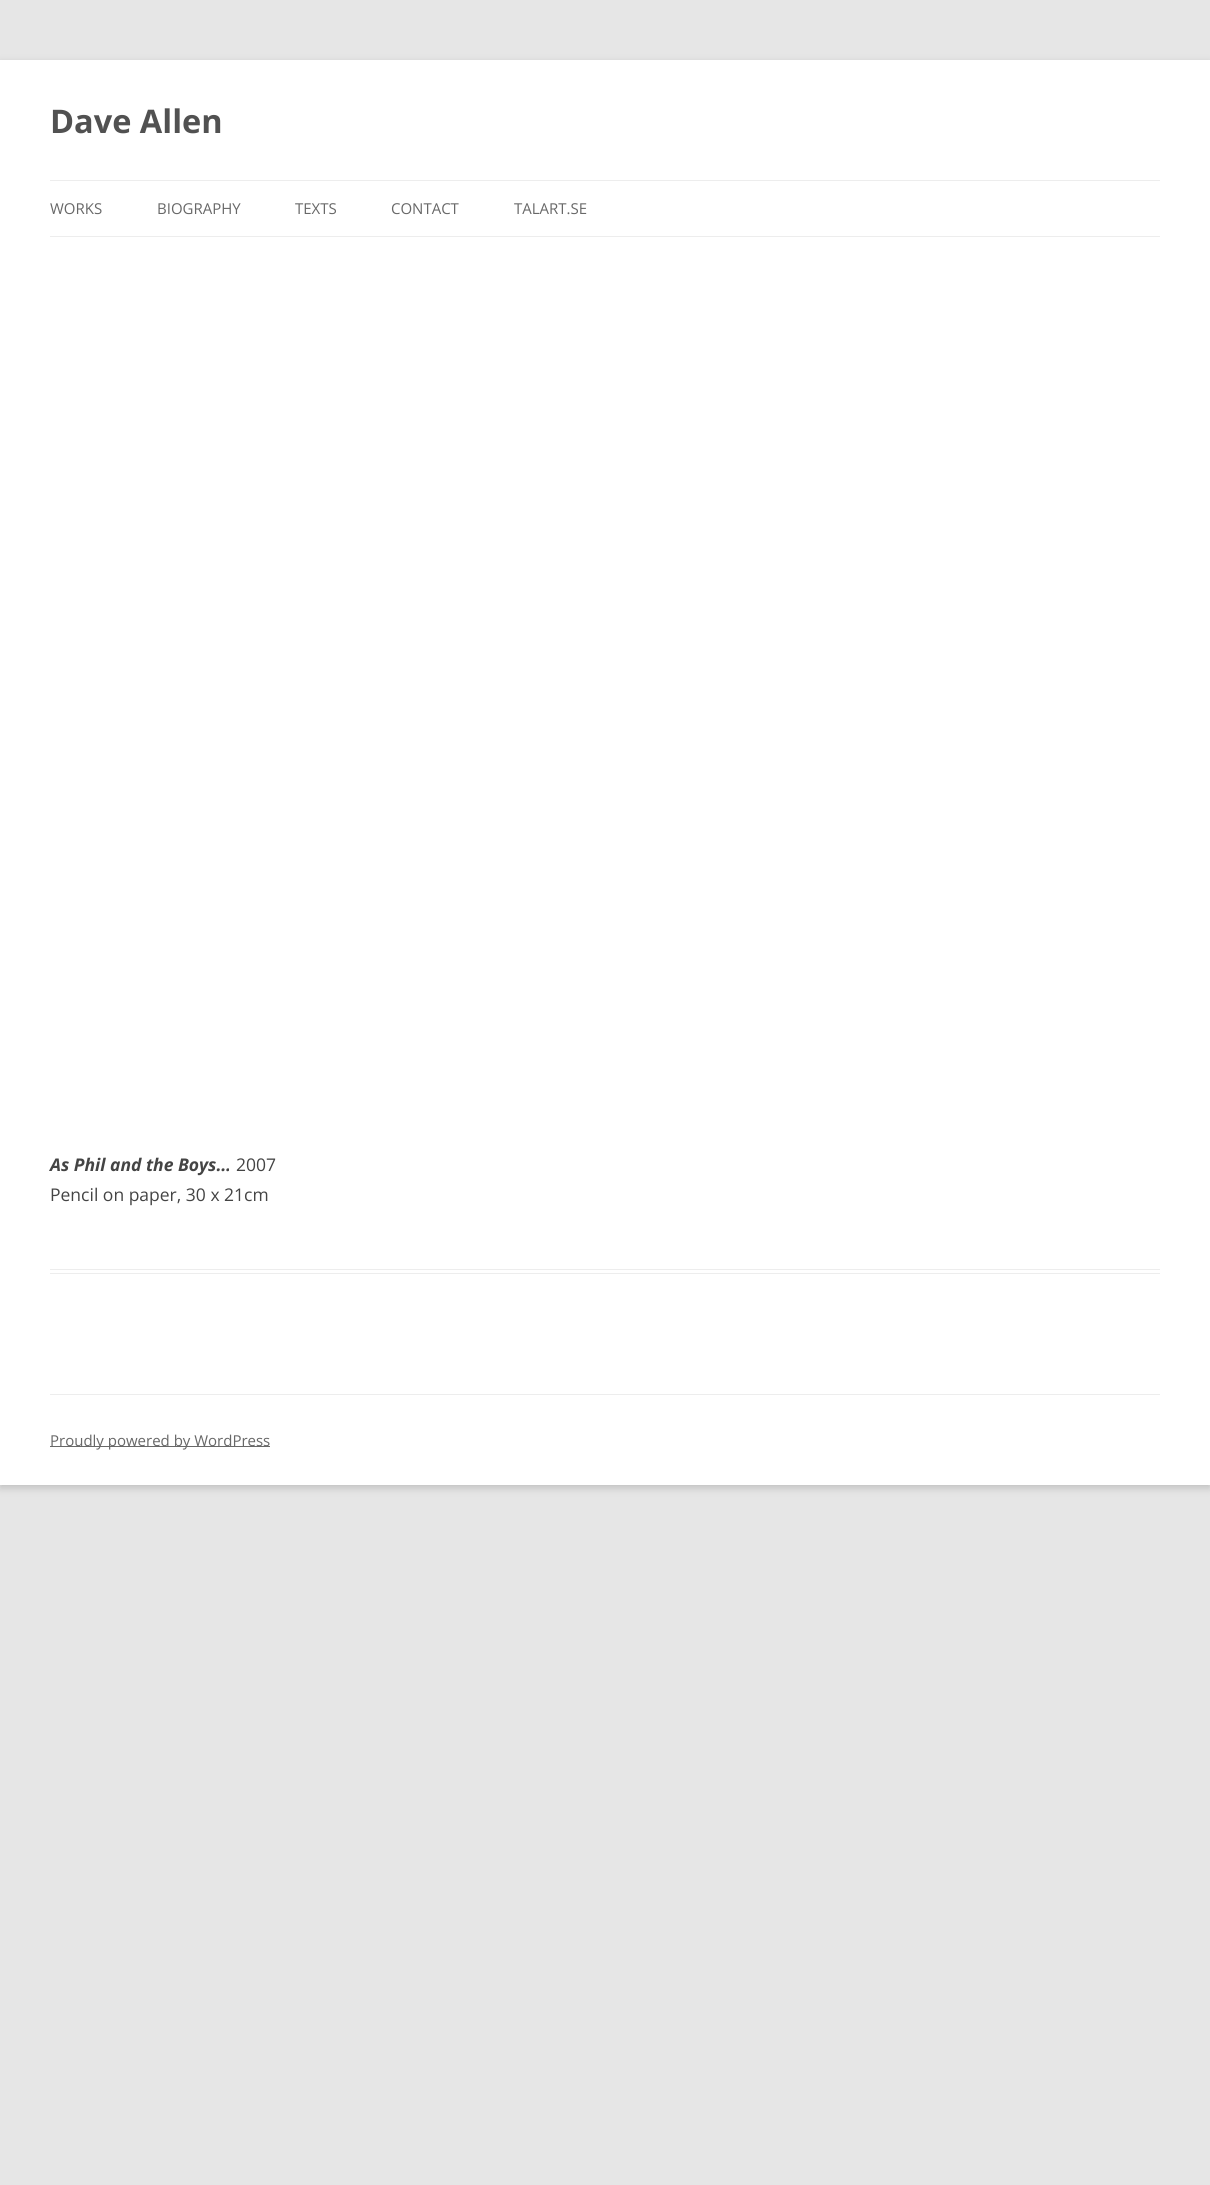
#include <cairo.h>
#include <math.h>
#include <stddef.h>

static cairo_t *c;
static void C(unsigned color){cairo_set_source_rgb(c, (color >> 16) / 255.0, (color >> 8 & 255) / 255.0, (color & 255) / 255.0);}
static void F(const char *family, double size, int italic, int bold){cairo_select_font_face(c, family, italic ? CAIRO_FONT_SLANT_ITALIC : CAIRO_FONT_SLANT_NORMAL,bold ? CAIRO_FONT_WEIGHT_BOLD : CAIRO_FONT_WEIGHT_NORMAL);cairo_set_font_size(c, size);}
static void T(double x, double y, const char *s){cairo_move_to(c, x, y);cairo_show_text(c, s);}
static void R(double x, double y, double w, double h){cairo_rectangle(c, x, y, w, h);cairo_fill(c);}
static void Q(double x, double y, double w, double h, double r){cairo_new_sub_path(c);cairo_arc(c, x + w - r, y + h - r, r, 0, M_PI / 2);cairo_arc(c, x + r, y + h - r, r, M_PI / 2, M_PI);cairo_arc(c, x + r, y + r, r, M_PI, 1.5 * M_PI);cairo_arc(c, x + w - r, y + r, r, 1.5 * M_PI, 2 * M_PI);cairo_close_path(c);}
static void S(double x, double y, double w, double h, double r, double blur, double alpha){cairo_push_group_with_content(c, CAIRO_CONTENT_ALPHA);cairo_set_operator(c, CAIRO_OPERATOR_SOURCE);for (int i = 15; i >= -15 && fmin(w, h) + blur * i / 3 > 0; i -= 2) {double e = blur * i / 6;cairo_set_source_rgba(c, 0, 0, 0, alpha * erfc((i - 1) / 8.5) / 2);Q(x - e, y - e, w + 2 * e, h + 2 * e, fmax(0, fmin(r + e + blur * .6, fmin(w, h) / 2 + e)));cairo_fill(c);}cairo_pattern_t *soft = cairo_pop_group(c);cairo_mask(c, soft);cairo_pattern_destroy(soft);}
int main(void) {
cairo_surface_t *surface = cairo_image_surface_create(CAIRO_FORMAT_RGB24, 1210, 2185);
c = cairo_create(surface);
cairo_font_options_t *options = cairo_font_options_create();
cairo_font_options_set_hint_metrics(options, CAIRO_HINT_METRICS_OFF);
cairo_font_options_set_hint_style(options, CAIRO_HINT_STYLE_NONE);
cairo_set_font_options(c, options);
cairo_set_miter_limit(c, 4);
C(0xe6e6e6);
cairo_paint(c);
C(0x646464);
S(0,63,1210,1425,0,4,.3);
C(0xffffff);
R(0,60,1210,1425);
F("Open Sans",32.5,0,1);
C(0x515151);
T(50,133,"Dave Allen");
C(0xededed);
R(50,180,1110,1);
R(50,236,1110,1);
F("Open Sans",15,0,0);
C(0x686868);
T(50,214,"WORKS");
T(157,214,"BIOGRAPHY");
T(295,214,"TEXTS");
T(391,214,"CONTACT");
T(514,214,"TALART.SE");
C(0xededed);
R(50,1269,1110,1);
R(50,1273,1110,1);
F("Open Sans",17.5,1,1);
C(0x444444);
T(50,1171,"As Phil and the Boys…");
F("Open Sans",17.5,0,0);
T(236,1171,"2007");
T(50,1201,"Pencil on paper, 30 x 21cm");
C(0xededed);
R(50,1394,1110,1);
C(0x686868);
R(50,1446,220,1);
F("Open Sans",15,0,0);
T(50,1446,"Proudly powered by WordPress");
cairo_surface_write_to_png(surface, "o.png");
cairo_font_options_destroy(options);
cairo_destroy(c);
cairo_surface_destroy(surface);
return 0;
}
